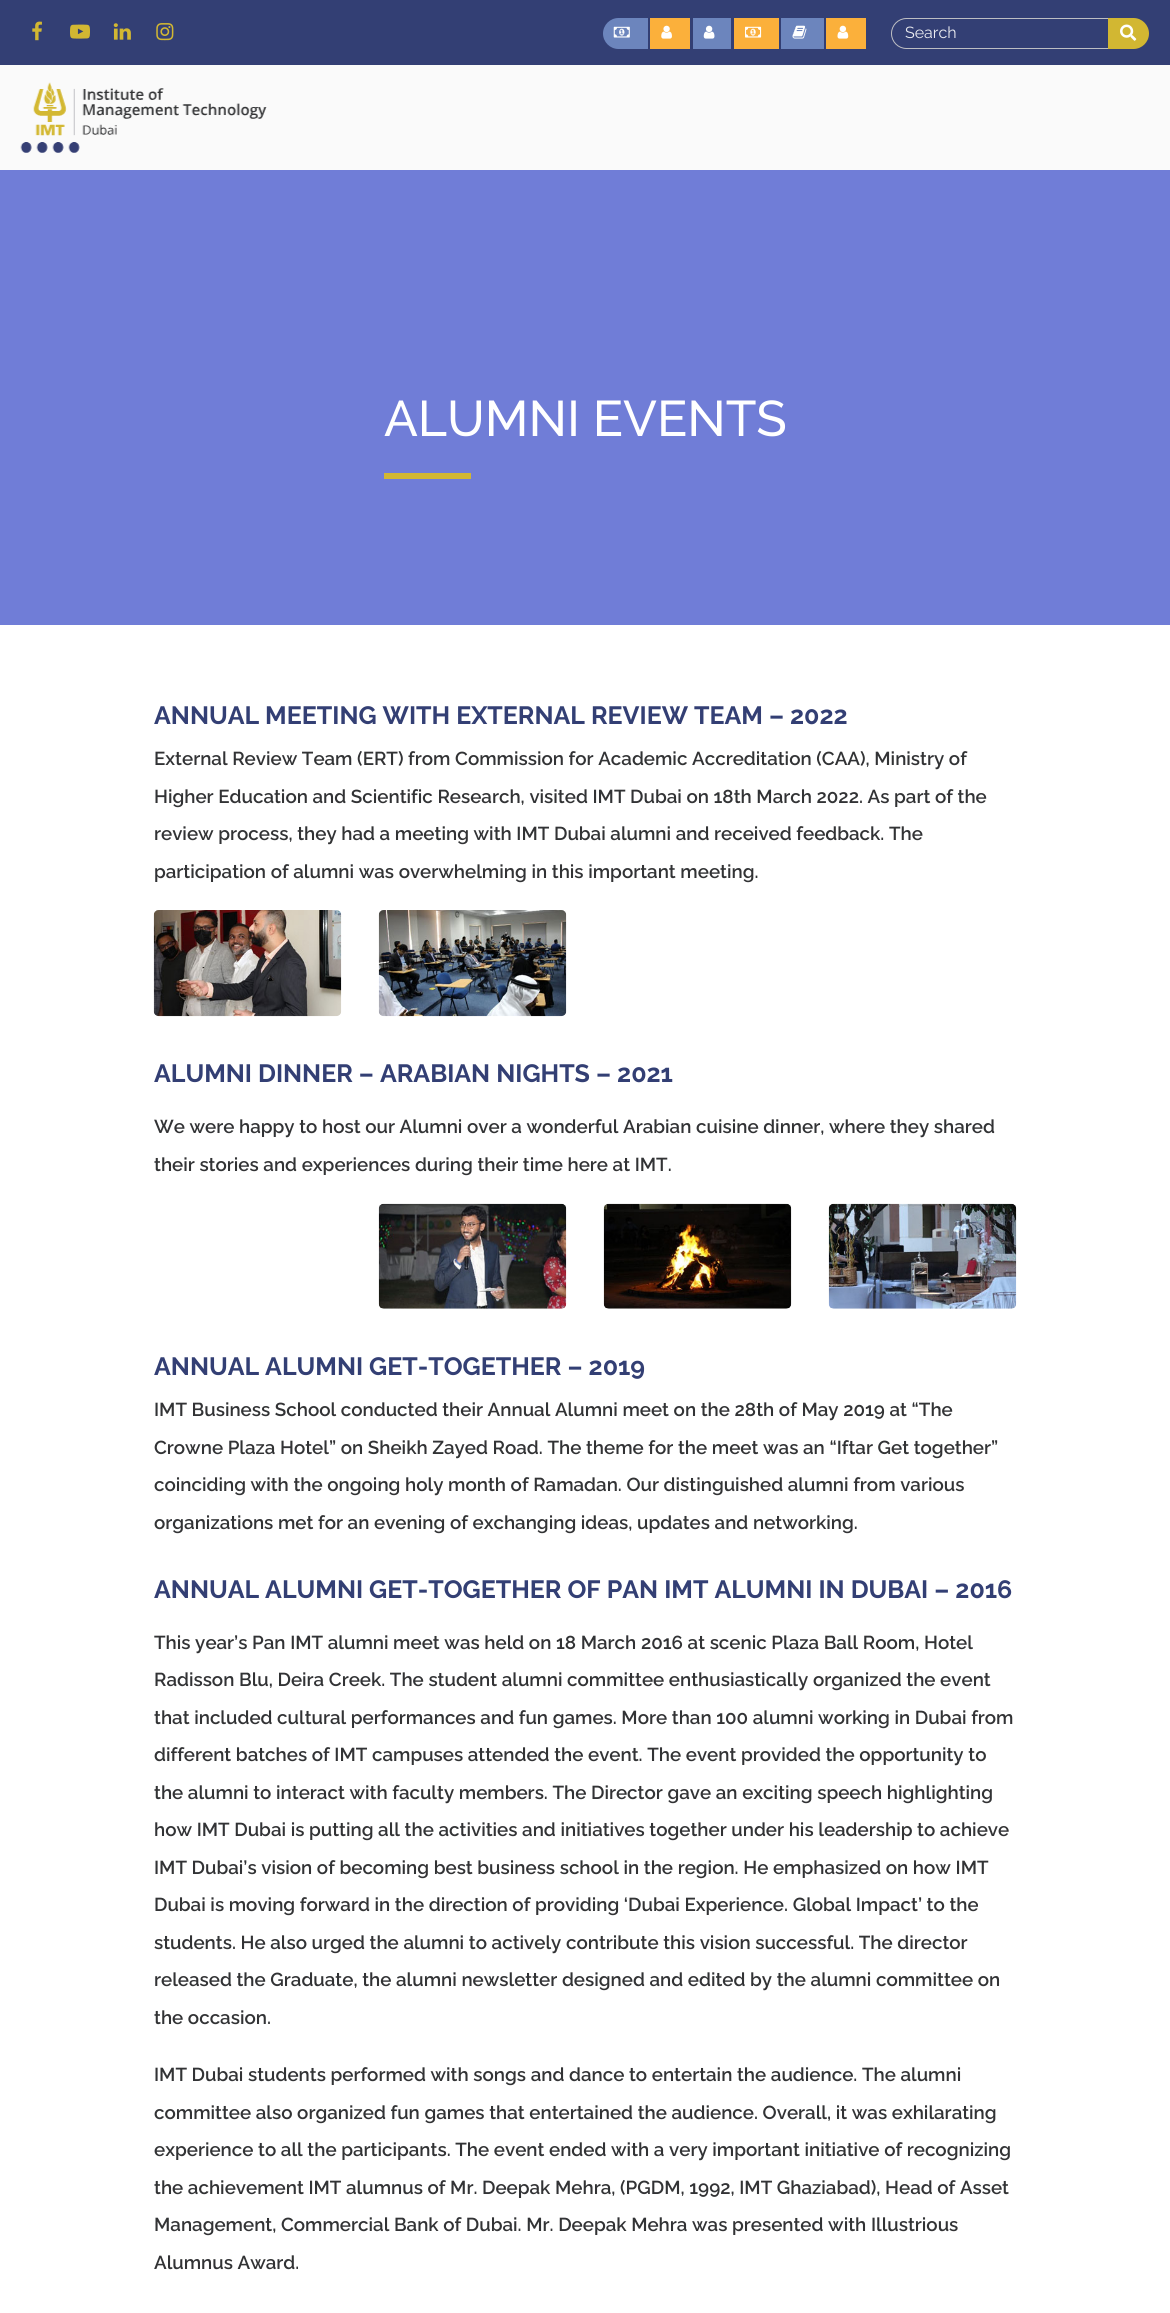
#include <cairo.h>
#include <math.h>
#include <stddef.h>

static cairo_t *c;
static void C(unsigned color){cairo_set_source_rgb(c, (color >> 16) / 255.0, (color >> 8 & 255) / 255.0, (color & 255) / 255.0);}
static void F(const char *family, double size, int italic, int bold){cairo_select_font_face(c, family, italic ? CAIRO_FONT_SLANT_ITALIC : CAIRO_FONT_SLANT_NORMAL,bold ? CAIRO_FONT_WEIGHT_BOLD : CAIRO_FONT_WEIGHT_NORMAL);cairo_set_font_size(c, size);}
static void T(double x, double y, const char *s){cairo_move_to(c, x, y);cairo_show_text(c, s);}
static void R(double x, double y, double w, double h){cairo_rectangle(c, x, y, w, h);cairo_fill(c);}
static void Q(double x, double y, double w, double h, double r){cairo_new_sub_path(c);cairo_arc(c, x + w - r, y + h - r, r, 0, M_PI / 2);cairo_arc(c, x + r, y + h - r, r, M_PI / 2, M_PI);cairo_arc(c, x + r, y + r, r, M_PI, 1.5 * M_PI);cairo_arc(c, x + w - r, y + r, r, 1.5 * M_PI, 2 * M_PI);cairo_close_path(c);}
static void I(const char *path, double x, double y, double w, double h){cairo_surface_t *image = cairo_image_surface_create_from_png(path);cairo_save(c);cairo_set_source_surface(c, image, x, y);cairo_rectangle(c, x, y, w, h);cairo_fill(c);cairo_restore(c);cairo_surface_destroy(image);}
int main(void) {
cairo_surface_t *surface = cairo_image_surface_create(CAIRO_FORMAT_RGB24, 1170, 2313);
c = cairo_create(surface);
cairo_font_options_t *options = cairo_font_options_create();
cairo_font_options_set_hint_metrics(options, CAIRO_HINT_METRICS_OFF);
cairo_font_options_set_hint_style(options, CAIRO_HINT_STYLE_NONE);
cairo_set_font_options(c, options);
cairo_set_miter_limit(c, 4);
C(0xffffff);
cairo_paint(c);
C(0x333f74);
R(0,0,1170,65);
I("1.png",32,21,10,20);
I("2.png",70,24,20,15);
I("3.png",113,23,18,17);
I("4.png",156,23,18,18);
C(0x6c85bd);
cairo_new_path(c);
cairo_move_to(c,618.5,18);
cairo_line_to(c,648,18);
cairo_line_to(c,648,49);
cairo_line_to(c,618.5,49);
cairo_curve_to(c,610,49,603,42,603,33.5);
cairo_curve_to(c,603,25,610,18,618.5,18);
cairo_close_path(c);
cairo_fill(c);
I("5.png",613,26,17,12);
C(0xfbb03b);
R(650,18,40,31);
I("6.png",661,25,11,14);
C(0x6c85bd);
R(693,18,38,31);
I("7.png",703,25,12,14);
C(0xfbb03b);
R(734,18,45,31);
I("8.png",745,26,17,12);
C(0x6c85bd);
R(781,18,43,31);
I("9.png",792,25,15,14);
C(0xfbb03b);
R(826,18,40,31);
I("10.png",837,25,12,14);
Q(891.5,18.5,249,30,15);
C(0xbdbec3);
cairo_set_line_width(c,1);
cairo_stroke(c);
F("Raleway",16,0,0);
C(0xebecf1);
T(905,38,"Search");
C(0xd2b732);
cairo_new_path(c);
cairo_move_to(c,1108,18);
cairo_line_to(c,1133.5,18);
cairo_curve_to(c,1142,18,1149,25,1149,33.5);
cairo_curve_to(c,1149,42,1142,49,1133.5,49);
cairo_line_to(c,1108,49);
cairo_close_path(c);
cairo_fill(c);
I("11.png",1120,24,17,17);
C(0xfafafa);
R(0,65,1170,105);
I("12.png",20,82,247,71);
C(0x707dd7);
R(0,170,1170,455);
F("Raleway Medium",50,0,0);
C(0xffffff);
T(384,436,"ALUMNI EVENTS");
C(0xd2b732);
R(384,473,87,6);
F("Raleway",25,0,1);
C(0x333f74);
T(154,724,"ANNUAL MEETING WITH EXTERNAL REVIEW TEAM – 2022");
F("Raleway SemiBold",18.75,0,0);
C(0x323335);
T(154,765,"External Review Team (ERT) from Commission for Academic Accreditation (CAA), Ministry of");
T(154,803,"Higher Education and Scientific Research, visited IMT Dubai on 18th March 2022. As part of the");
T(154,840,"review process, they had a meeting with IMT Dubai alumni and received feedback. The");
T(154,878,"participation of alumni was overwhelming in this important meeting.");
I("13.png",153,910,189,107);
I("14.png",378,910,189,107);
F("Raleway",25,0,1);
C(0x333f74);
T(154,1082,"ALUMNI DINNER – ARABIAN NIGHTS – 2021");
F("Raleway SemiBold",18.75,0,0);
C(0x323335);
T(154,1133,"We were happy to host our Alumni over a wonderful Arabian cuisine dinner, where they shared");
T(154,1171,"their stories and experiences during their time here at IMT.");
I("15.png",378,1203,189,106);
I("16.png",603,1203,189,106);
I("17.png",828,1203,189,106);
F("Raleway",25,0,1);
C(0x333f74);
T(154,1375,"ANNUAL ALUMNI GET-TOGETHER – 2019");
F("Raleway SemiBold",18.75,0,0);
C(0x323335);
T(154,1416,"IMT Business School conducted their Annual Alumni meet on the 28th of May 2019 at “The");
T(154,1454,"Crowne Plaza Hotel” on Sheikh Zayed Road. The theme for the meet was an “Iftar Get together”");
T(154,1491,"coinciding with the ongoing holy month of Ramadan. Our distinguished alumni from various");
T(154,1529,"organizations met for an evening of exchanging ideas, updates and networking.");
F("Raleway",25,0,1);
C(0x333f74);
T(154,1598,"ANNUAL ALUMNI GET-TOGETHER OF PAN IMT ALUMNI IN DUBAI – 2016");
F("Raleway SemiBold",18.75,0,0);
C(0x323335);
T(154,1649,"This year’s Pan IMT alumni meet was held on 18 March 2016 at scenic Plaza Ball Room, Hotel");
T(154,1686,"Radisson Blu, Deira Creek. The student alumni committee enthusiastically organized the event");
T(154,1724,"that included cultural performances and fun games. More than 100 alumni working in Dubai from");
T(154,1761,"different batches of IMT campuses attended the event. The event provided the opportunity to");
T(154,1799,"the alumni to interact with faculty members. The Director gave an exciting speech highlighting");
T(154,1836,"how IMT Dubai is putting all the activities and initiatives together under his leadership to achieve");
T(154,1874,"IMT Dubai’s vision of becoming best business school in the region. He emphasized on how IMT");
T(154,1911,"Dubai is moving forward in the direction of providing ‘Dubai Experience. Global Impact’ to the");
T(154,1949,"students. He also urged the alumni to actively contribute this vision successful. The director");
T(154,1986,"released the Graduate, the alumni newsletter designed and edited by the alumni committee on");
T(154,2024,"the occasion.");
T(154,2081,"IMT Dubai students performed with songs and dance to entertain the audience. The alumni");
T(154,2119,"committee also organized fun games that entertained the audience. Overall, it was exhilarating");
T(154,2156,"experience to all the participants. The event ended with a very important initiative of recognizing");
T(154,2194,"the achievement IMT alumnus of Mr. Deepak Mehra, (PGDM, 1992, IMT Ghaziabad), Head of Asset");
T(154,2231,"Management, Commercial Bank of Dubai. Mr. Deepak Mehra was presented with Illustrious");
T(154,2269,"Alumnus Award.");
cairo_surface_write_to_png(surface, "o.png");
cairo_font_options_destroy(options);
cairo_destroy(c);
cairo_surface_destroy(surface);
return 0;
}
